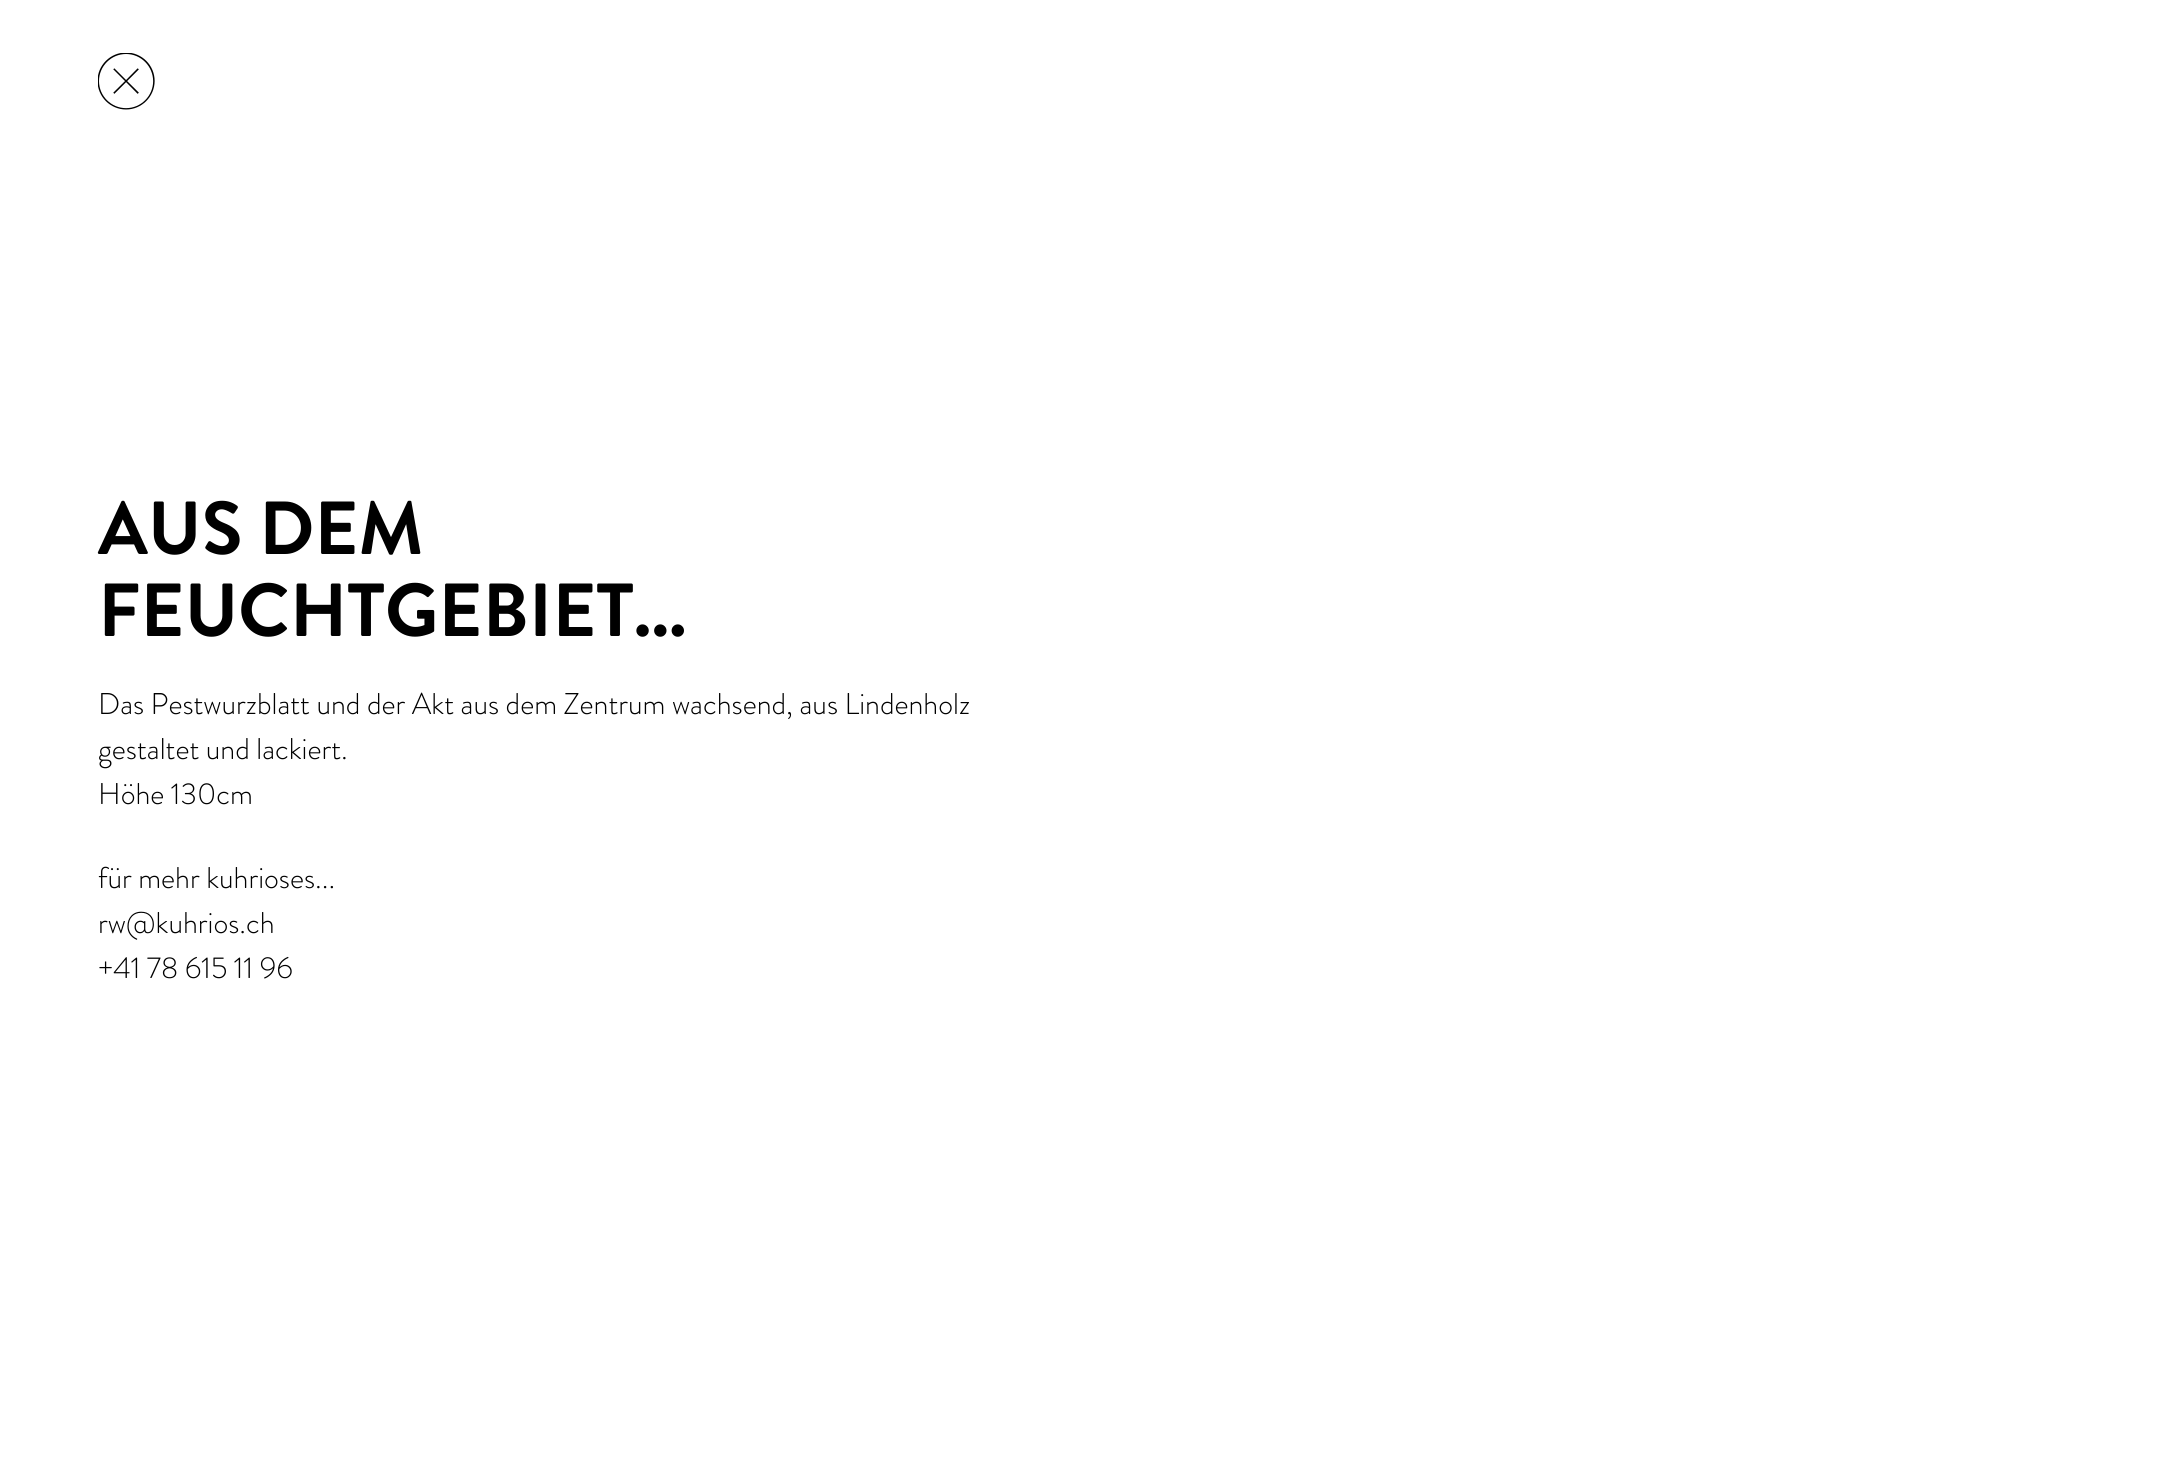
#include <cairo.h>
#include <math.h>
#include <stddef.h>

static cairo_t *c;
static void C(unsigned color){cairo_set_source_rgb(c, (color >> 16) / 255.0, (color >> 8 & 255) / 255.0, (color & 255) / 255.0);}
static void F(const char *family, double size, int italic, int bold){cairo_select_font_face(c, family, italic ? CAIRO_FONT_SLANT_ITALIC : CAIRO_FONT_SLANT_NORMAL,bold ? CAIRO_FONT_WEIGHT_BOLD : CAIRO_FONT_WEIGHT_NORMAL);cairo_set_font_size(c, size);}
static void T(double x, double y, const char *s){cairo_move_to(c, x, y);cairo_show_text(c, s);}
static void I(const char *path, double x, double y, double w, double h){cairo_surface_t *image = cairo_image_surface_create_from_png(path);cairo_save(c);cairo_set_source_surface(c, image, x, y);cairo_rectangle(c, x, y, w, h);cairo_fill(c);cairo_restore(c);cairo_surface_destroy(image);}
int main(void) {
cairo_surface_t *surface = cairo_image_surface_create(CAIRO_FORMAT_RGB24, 2180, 1478);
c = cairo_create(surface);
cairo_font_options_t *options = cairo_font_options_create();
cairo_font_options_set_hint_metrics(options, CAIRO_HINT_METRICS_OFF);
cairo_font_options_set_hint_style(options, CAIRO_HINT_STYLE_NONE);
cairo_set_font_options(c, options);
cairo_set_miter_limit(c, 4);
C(0xffffff);
cairo_paint(c);
I("1.png",98,53,57,57);
F("Brandon Grotesque",75,0,1);
C(0x000000);
T(98,554,"AUS DEM");
T(98,636,"FEUCHTGEBIET...");
F("Brandon Grotesque Light",30,0,0);
T(98,714,"Das Pestwurzblatt und der Akt aus dem Zentrum wachsend, aus Lindenholz");
T(98,759,"gestaltet und lackiert.");
T(98,804,"Höhe 130cm");
T(98,888,"für mehr kuhrioses...");
T(98,933,"rw@kuhrios.ch");
T(98,978,"+41 78 615 11 96");
cairo_surface_write_to_png(surface, "o.png");
cairo_font_options_destroy(options);
cairo_destroy(c);
cairo_surface_destroy(surface);
return 0;
}
